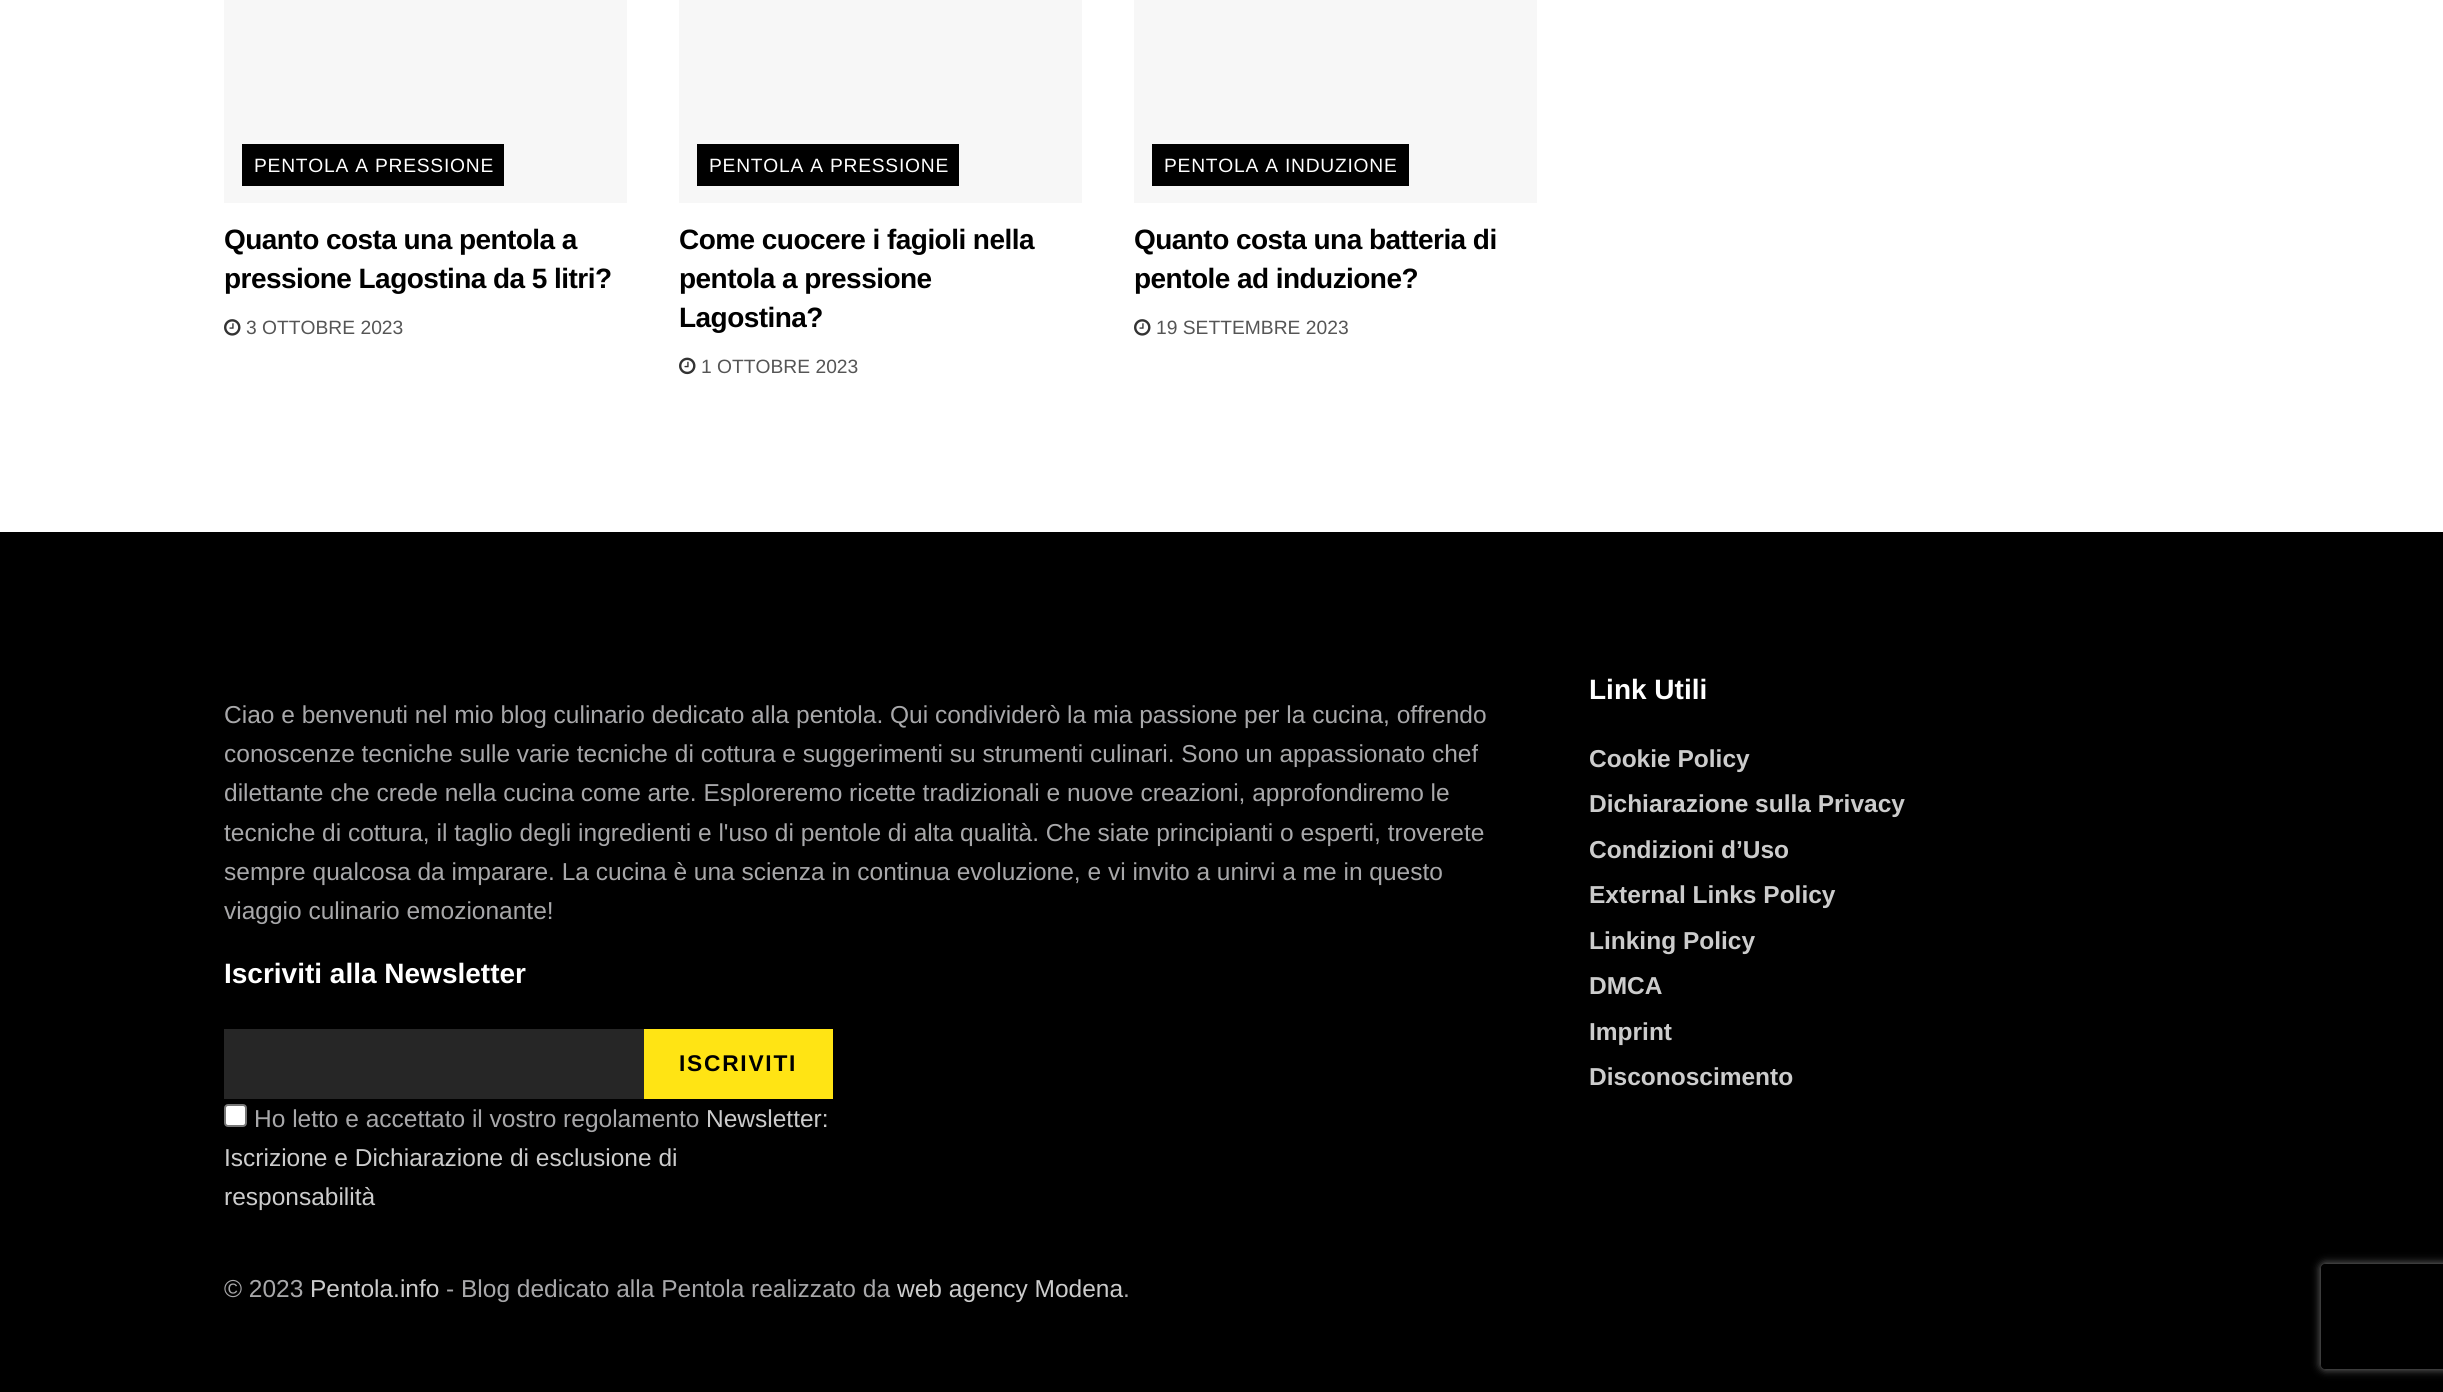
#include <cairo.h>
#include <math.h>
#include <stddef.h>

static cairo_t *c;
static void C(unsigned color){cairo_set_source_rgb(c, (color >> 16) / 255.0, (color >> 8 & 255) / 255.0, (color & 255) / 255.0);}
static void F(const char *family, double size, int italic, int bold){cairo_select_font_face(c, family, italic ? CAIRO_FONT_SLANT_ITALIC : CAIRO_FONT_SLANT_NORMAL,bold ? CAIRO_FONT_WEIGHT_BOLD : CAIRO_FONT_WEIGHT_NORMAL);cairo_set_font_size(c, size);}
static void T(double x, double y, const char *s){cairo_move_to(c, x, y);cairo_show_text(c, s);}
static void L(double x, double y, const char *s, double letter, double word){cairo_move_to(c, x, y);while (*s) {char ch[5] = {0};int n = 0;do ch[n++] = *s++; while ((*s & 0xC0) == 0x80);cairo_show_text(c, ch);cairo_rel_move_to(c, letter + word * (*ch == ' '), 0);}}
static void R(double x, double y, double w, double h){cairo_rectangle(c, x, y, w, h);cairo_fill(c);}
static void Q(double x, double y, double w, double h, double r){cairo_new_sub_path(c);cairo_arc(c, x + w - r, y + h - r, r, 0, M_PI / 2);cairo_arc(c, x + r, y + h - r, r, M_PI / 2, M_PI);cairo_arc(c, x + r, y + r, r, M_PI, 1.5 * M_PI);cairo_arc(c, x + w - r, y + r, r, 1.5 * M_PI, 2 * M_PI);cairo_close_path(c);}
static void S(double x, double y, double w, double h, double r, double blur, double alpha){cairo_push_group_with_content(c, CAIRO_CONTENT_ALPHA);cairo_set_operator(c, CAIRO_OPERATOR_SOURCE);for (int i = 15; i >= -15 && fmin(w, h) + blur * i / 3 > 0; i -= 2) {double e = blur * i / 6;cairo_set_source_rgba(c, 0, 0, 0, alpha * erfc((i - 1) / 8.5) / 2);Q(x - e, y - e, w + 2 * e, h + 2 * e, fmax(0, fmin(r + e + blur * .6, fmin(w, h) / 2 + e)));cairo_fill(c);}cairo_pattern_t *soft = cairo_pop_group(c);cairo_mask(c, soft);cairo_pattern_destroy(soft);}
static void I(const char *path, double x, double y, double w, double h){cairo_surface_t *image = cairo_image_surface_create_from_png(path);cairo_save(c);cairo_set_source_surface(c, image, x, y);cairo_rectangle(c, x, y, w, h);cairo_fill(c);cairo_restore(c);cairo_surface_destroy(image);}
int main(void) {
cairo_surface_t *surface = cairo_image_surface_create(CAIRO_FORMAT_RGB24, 2443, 1392);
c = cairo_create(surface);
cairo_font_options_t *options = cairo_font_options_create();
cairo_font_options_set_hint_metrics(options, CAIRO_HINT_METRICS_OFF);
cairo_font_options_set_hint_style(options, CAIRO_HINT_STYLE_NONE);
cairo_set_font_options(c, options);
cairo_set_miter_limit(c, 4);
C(0xffffff);
cairo_paint(c);
C(0xf7f7f7);
R(224,0,403,203);
C(0x000000);
R(242,144,262,42);
F("Liberation Sans",19.25,0,0);
C(0xffffff);
L(254,172,"PENTOLA A PRESSIONE",.75,0);
F("Liberation Sans",28,0,1);
C(0x000000);
L(224,249,"Quanto costa una pentola a",-.55,0);
L(224,288,"pressione Lagostina da 5 litri?",-.55,0);
I("1.png",224,319,17,17);
F("Liberation Sans",19.25,0,0);
C(0x555555);
T(246,334,"3 OTTOBRE 2023");
C(0xf7f7f7);
R(679,0,403,203);
C(0x000000);
R(697,144,262,42);
C(0xffffff);
L(709,172,"PENTOLA A PRESSIONE",.75,0);
F("Liberation Sans",28,0,1);
C(0x000000);
L(679,249,"Come cuocere i fagioli nella",-.55,0);
L(679,288,"pentola a pressione",-.55,0);
L(679,327,"Lagostina?",-.55,0);
I("2.png",679,357,17,18);
F("Liberation Sans",19.25,0,0);
C(0x555555);
T(701,373,"1 OTTOBRE 2023");
C(0xf7f7f7);
R(1134,0,403,203);
C(0x000000);
R(1152,144,257,42);
C(0xffffff);
L(1164,172,"PENTOLA A INDUZIONE",.75,0);
F("Liberation Sans",28,0,1);
C(0x000000);
L(1134,249,"Quanto costa una batteria di",-.55,0);
L(1134,288,"pentole ad induzione?",-.55,0);
I("1.png",1134,319,17,17);
F("Liberation Sans",19.25,0,0);
C(0x555555);
T(1156,334,"19 SETTEMBRE 2023");
C(0x000000);
R(0,532,2443,860);
F("Liberation Sans",24.5,0,0);
C(0xa8a8aa);
T(224,723,"Ciao e benvenuti nel mio blog culinario dedicato alla pentola. Qui condividerò la mia passione per la cucina, offrendo");
T(224,762,"conoscenze tecniche sulle varie tecniche di cottura e suggerimenti su strumenti culinari. Sono un appassionato chef");
T(224,801,"dilettante che crede nella cucina come arte. Esploreremo ricette tradizionali e nuove creazioni, approfondiremo le");
T(224,841,"tecniche di cottura, il taglio degli ingredienti e l'uso di pentole di alta qualità. Che siate principianti o esperti, troverete");
T(224,880,"sempre qualcosa da imparare. La cucina è una scienza in continua evoluzione, e vi invito a unirvi a me in questo");
T(224,919,"viaggio culinario emozionante!");
F("Liberation Sans",28,0,1);
C(0xffffff);
T(224,983,"Iscriviti alla Newsletter");
C(0x262626);
R(224,1029,420,70);
C(0xffe414);
R(644,1029,189,70);
F("Liberation Sans",22.75,0,1);
C(0x000000);
L(679,1071,"ISCRIVITI",1.75,0);
cairo_save(c);
cairo_set_fill_rule(c,CAIRO_FILL_RULE_EVEN_ODD);
cairo_new_path(c);
cairo_move_to(c,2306,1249);
cairo_line_to(c,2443,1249);
cairo_line_to(c,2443,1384);
cairo_line_to(c,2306,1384);
cairo_close_path(c);
cairo_move_to(c,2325,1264);
cairo_line_to(c,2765,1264);
cairo_curve_to(c,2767,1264,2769,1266,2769,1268);
cairo_line_to(c,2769,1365);
cairo_curve_to(c,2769,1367,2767,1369,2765,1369);
cairo_line_to(c,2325,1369);
cairo_curve_to(c,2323,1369,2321,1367,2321,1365);
cairo_line_to(c,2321,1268);
cairo_curve_to(c,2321,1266,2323,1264,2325,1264);
cairo_close_path(c);
cairo_clip(c);
C(0x808080);
S(2321,1264,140,105,4,4.5,1);
cairo_restore(c);
C(0xffffff);
Q(225,1105,21,21,3);
cairo_fill_preserve(c);
C(0x767676);
cairo_stroke(c);
F("Liberation Sans",24.5,0,0);
C(0xa8a8aa);
T(254,1127,"Ho letto e accettato il vostro regolamento");
C(0xcccccc);
T(706,1127,"Newsletter:");
T(224,1166,"Iscrizione e Dichiarazione di esclusione di");
T(224,1205,"responsabilità");
F("Liberation Sans",28,0,1);
C(0xffffff);
T(1589,699,"Link Utili");
F("Liberation Sans",24.5,0,1);
C(0xcccccc);
T(1589,767,"Cookie Policy");
T(1589,812,"Dichiarazione sulla Privacy");
T(1589,858,"Condizioni d’Uso");
T(1589,903,"External Links Policy");
T(1589,949,"Linking Policy");
T(1589,994,"DMCA");
T(1589,1040,"Imprint");
T(1589,1085,"Disconoscimento");
F("Liberation Sans",24.5,0,0);
C(0xa8a8aa);
T(224,1297,"© 2023");
C(0xcccccc);
T(310,1297,"Pentola.info");
C(0xa8a8aa);
T(446,1297,"- Blog dedicato alla Pentola realizzato da");
C(0xcccccc);
T(897,1297,"web agency Modena");
C(0xa8a8aa);
T(1123,1297,".");
cairo_surface_write_to_png(surface, "o.png");
cairo_font_options_destroy(options);
cairo_destroy(c);
cairo_surface_destroy(surface);
return 0;
}
